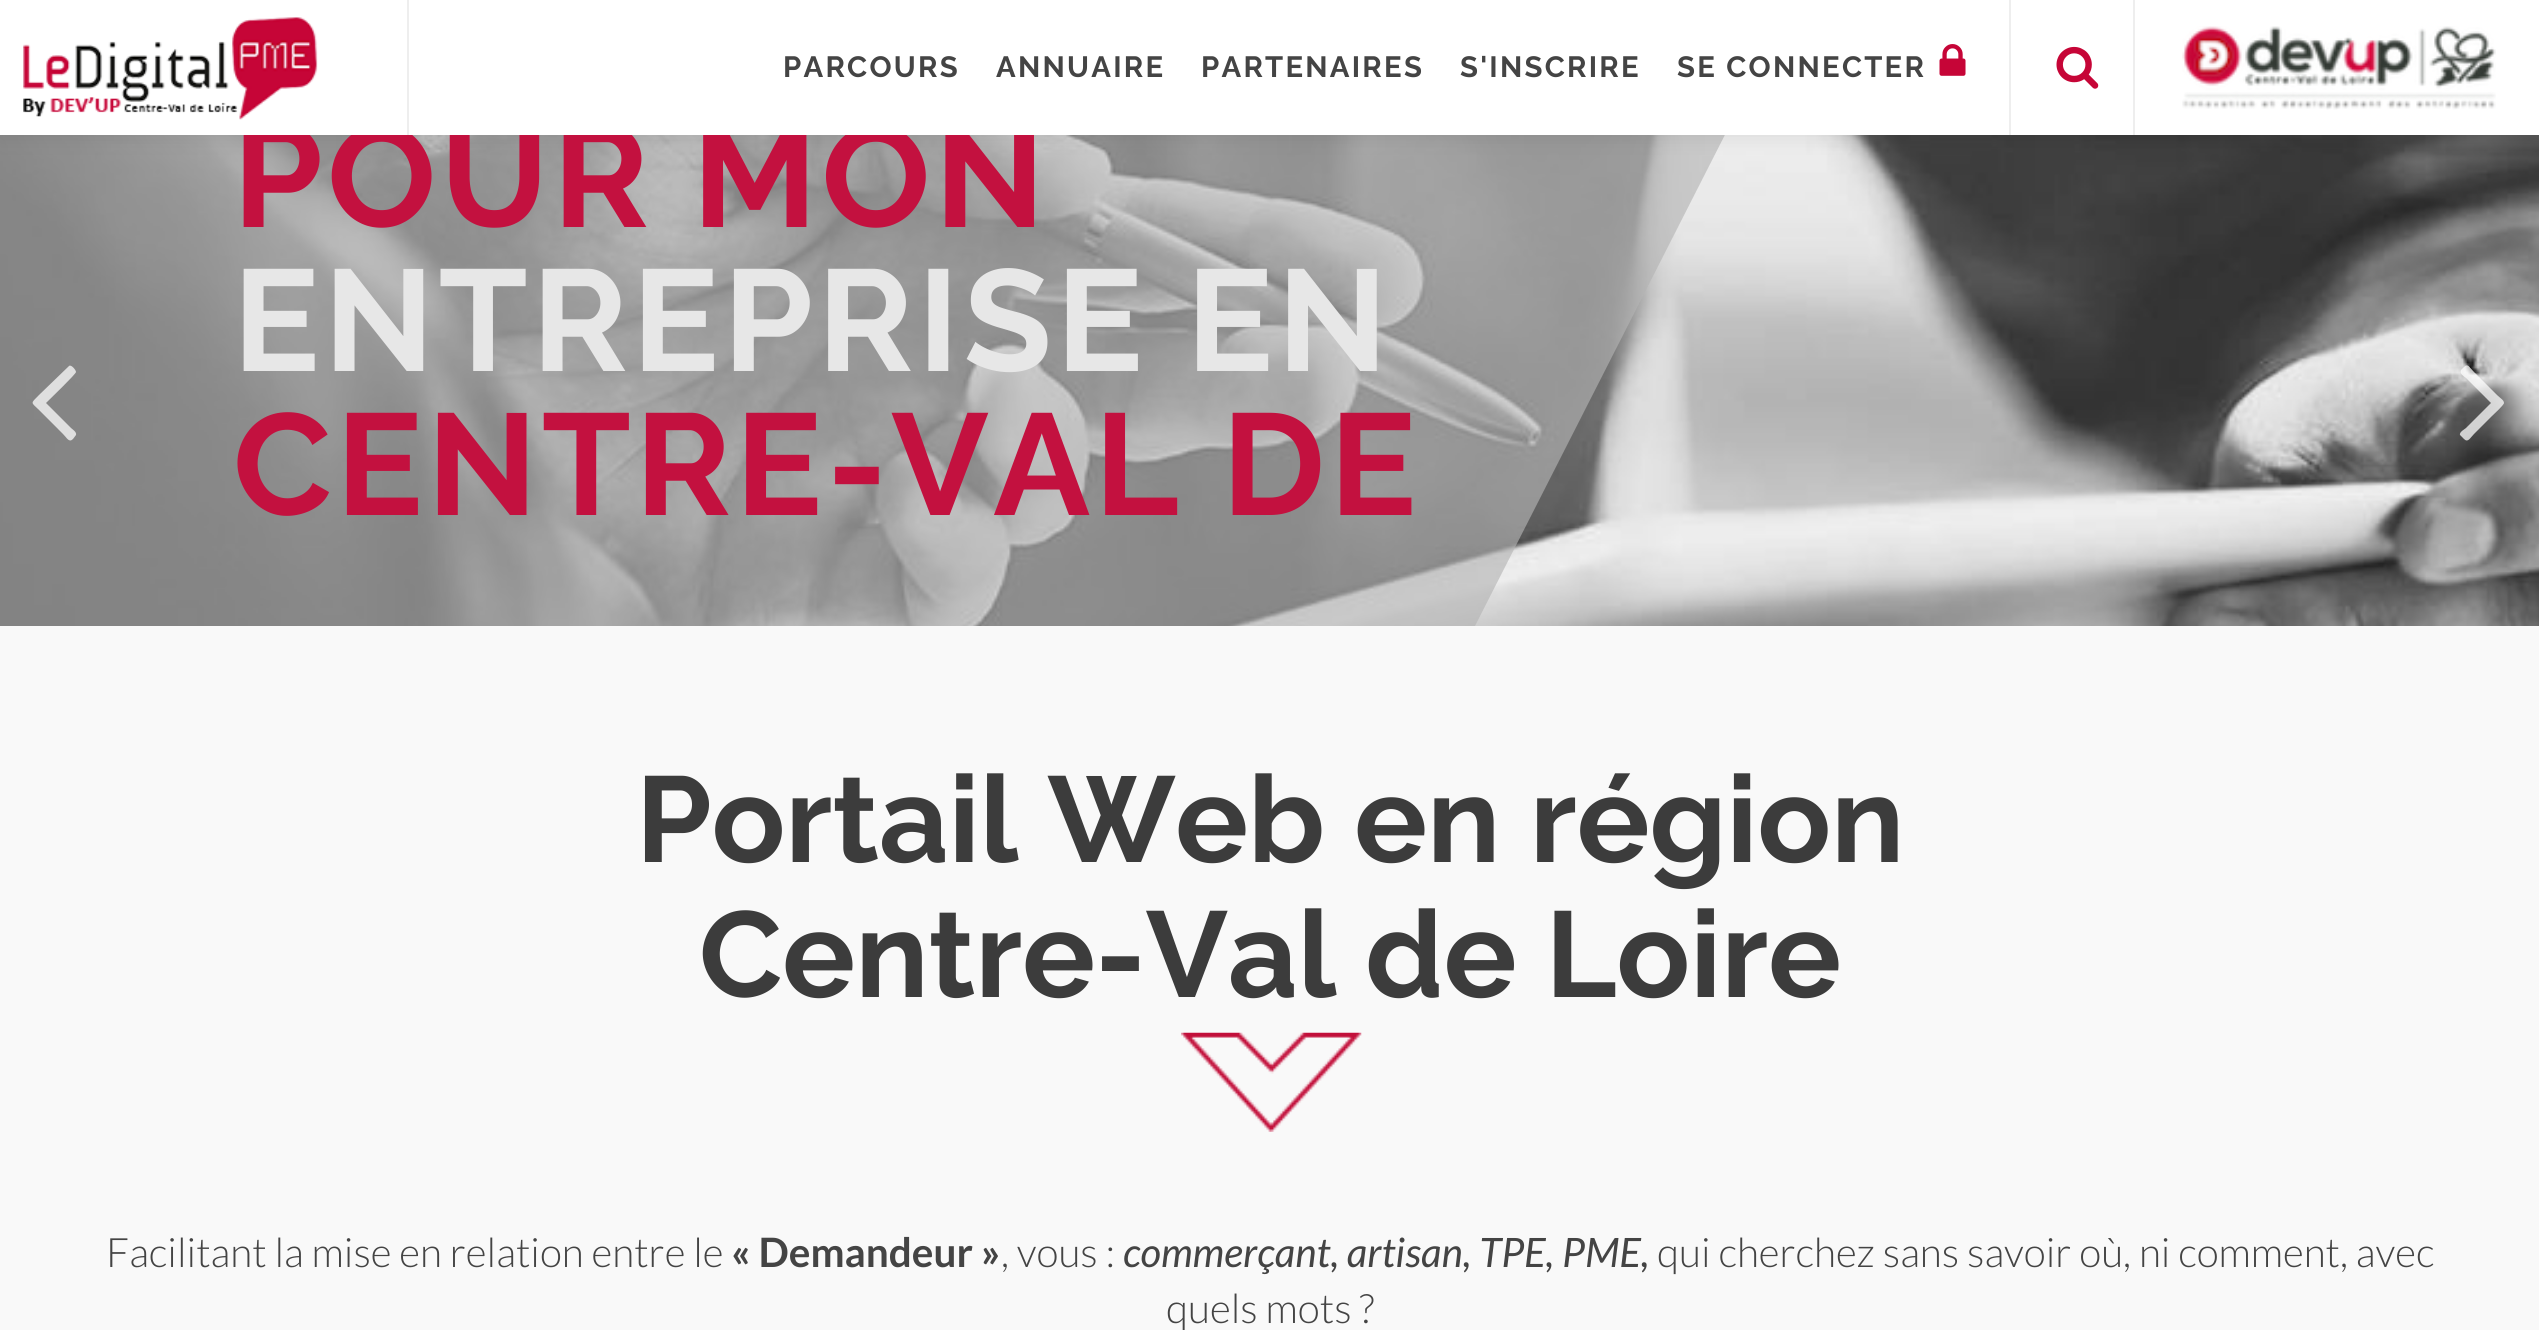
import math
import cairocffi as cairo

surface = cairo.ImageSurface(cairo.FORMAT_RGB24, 2539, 1330)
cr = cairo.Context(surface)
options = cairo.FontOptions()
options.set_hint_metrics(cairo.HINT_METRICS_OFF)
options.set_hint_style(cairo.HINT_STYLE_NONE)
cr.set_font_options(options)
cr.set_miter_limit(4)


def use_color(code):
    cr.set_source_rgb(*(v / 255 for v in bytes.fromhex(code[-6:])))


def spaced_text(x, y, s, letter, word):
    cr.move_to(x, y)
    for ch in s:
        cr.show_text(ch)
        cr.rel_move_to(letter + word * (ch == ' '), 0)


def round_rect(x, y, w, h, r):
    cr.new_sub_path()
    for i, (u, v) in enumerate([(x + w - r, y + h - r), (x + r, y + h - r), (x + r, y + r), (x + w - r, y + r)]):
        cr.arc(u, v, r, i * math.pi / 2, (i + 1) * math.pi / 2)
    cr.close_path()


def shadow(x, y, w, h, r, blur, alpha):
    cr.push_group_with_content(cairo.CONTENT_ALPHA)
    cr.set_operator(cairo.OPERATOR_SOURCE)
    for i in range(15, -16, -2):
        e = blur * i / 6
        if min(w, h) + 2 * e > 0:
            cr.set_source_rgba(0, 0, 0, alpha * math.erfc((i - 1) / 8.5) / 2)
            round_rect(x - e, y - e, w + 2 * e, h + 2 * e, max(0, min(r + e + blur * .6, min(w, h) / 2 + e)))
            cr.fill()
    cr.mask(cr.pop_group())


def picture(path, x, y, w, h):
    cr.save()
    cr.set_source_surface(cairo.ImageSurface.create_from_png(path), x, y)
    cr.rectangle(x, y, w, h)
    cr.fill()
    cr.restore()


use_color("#ffffff")
cr.paint()
picture("img5.png", 0, 135, 2539, 491)
cr.set_source_rgba(0.706, 0.706, 0.706, 0.64)
cr.new_path()
cr.move_to(0, -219)
cr.line_to(1905, -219)
cr.line_to(1275, 1019)
cr.line_to(-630, 1019)
cr.close_path()
cr.fill()
use_color("#000000")
shadow(0, 0, 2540, 135, 0, 11, 0.1)
cr.select_font_face("Raleway", cairo.FONT_SLANT_NORMAL, cairo.FONT_WEIGHT_BOLD)
cr.set_font_size(144)
use_color("#c3113f")
spaced_text(233, 227, "POUR MON", 4.5, 0)
use_color("#ffffff")
cr.rectangle(0, 0, 2539, 135)
cr.fill()
use_color("#eeeeee")
cr.rectangle(407, 0, 2, 135)
cr.fill()
picture("img1.png", 23, 17, 295, 103)
cr.rectangle(2009, 0, 2, 135)
cr.fill()
cr.set_font_size(29.25)
use_color("#444444")
spaced_text(783, 77, "PARCOURS", 2.25, 0)
spaced_text(996, 77, "ANNUAIRE", 2.25, 0)
spaced_text(1201, 77, "PARTENAIRES", 2.25, 0)
spaced_text(1460, 77, "S'INSCRIRE", 2.25, 0)
spaced_text(1677, 77, "SE CONNECTER", 2.25, 0)
picture("img2.png", 1939, 44, 27, 32)
use_color("#eeeeee")
cr.rectangle(2133, 0, 2, 135)
cr.fill()
picture("img3.png", 2056, 46, 43, 43)
picture("img4.png", 2182, 26, 314, 84)
use_color("#dfdfdf")
cr.new_path()
cr.move_to(76, 372)
cr.curve_to(76, 374, 50, 399, 46, 403)
cr.line_to(71, 428)
cr.curve_to(72, 429, 77, 432, 76, 435)
cr.line_to(73, 439)
cr.curve_to(69, 443, 67, 438, 63, 434)
cr.line_to(39, 410)
cr.curve_to(31, 402, 30, 404, 39, 395)
cr.line_to(69, 366)
cr.curve_to(71, 364, 76, 370, 76, 372)
cr.close_path()
cr.fill()
cr.set_font_size(144)
use_color("#e7e7e7")
spaced_text(233, 371, "ENTREPRISE EN", 4.5, 0)
use_color("#c3113f")
spaced_text(233, 515, "CENTRE-VAL DE", 4.5, 0)
cr.set_source_rgba(1, 1, 1, 0.74)
cr.new_path()
cr.move_to(2504, 403)
cr.curve_to(2504, 405, 2493, 415, 2492, 416)
cr.line_to(2474, 434)
cr.curve_to(2470, 438, 2468, 443, 2464, 439)
cr.line_to(2460, 435)
cr.curve_to(2459, 432, 2465, 429, 2466, 428)
cr.line_to(2491, 403)
cr.line_to(2466, 378)
cr.curve_to(2465, 377, 2459, 374, 2461, 370)
cr.line_to(2464, 367)
cr.curve_to(2468, 363, 2469, 367, 2474, 372)
cr.line_to(2497, 395)
cr.curve_to(2500, 398, 2504, 400, 2504, 403)
cr.close_path()
cr.fill()
use_color("#f9f9f9")
cr.rectangle(0, 626, 2539, 704)
cr.fill()
cr.set_font_size(121.5)
use_color("#3c3c3c")
cr.move_to(636, 862)
cr.show_text("Portail Web en région")
cr.move_to(699, 997)
cr.show_text("Centre-Val de Loire")
picture("img6.png", 1181, 1032, 181, 100)
cr.select_font_face("Lato Light")
cr.set_font_size(40.5)
use_color("#444444")
cr.move_to(106, 1267)
cr.show_text("Facilitant la mise en relation entre le")
cr.select_font_face("Lato", cairo.FONT_SLANT_NORMAL, cairo.FONT_WEIGHT_BOLD)
cr.move_to(731, 1267)
cr.show_text("« Demandeur »")
cr.select_font_face("Lato Light")
cr.move_to(1001, 1267)
cr.show_text(", vous :")
cr.select_font_face("Lato", cairo.FONT_SLANT_ITALIC)
cr.move_to(1123, 1267)
cr.show_text("commerçant, artisan, TPE, PME,")
cr.select_font_face("Lato Light")
cr.move_to(1657, 1267)
cr.show_text("qui cherchez sans savoir où, ni comment, avec")
cr.move_to(1166, 1323)
cr.show_text("quels mots ?")
surface.write_to_png("result.png")
